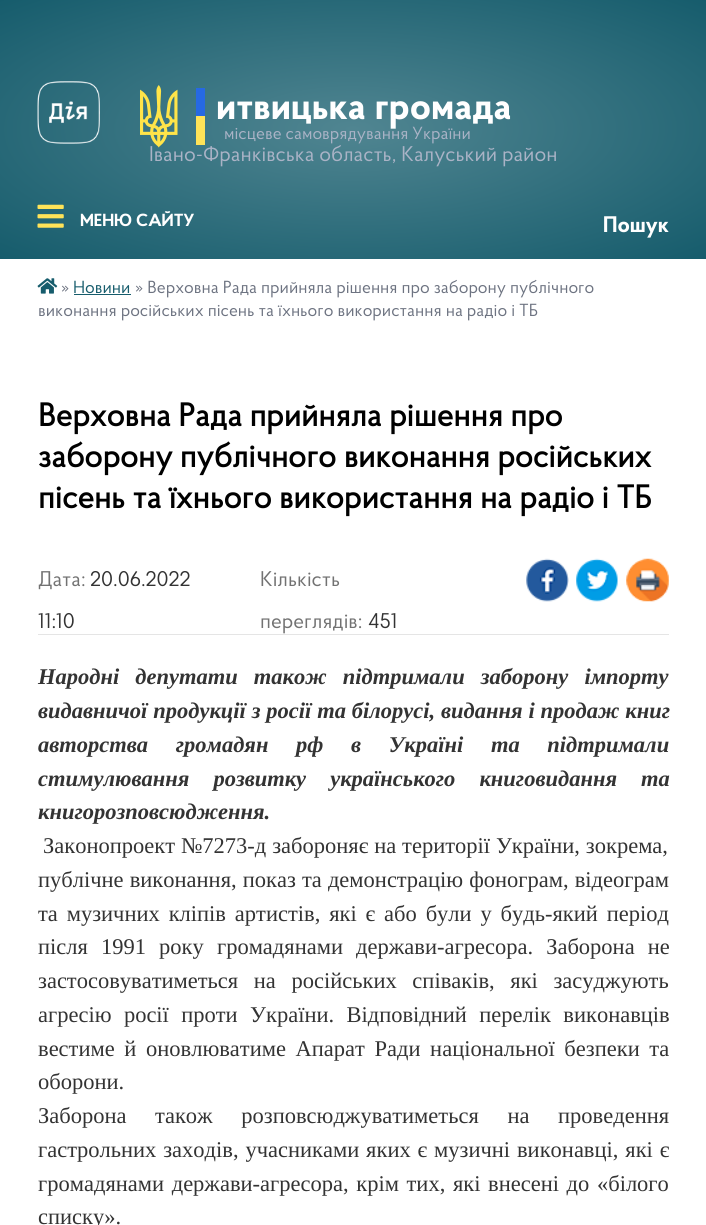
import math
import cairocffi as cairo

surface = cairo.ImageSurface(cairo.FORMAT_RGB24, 706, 1225)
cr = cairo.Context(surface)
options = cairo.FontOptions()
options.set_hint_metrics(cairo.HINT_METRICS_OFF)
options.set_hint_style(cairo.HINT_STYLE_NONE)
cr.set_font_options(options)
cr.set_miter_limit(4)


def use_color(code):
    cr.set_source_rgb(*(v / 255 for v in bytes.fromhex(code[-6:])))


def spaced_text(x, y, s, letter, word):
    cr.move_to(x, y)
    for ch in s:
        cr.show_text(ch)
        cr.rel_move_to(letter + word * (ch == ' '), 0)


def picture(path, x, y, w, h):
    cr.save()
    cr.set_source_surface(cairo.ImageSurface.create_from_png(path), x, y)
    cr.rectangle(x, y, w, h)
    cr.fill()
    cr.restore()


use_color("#ffffff")
cr.paint()
gradient = cairo.RadialGradient(0, 0, 0, 0, 0, 1)
gradient.set_matrix(cairo.Matrix(1 / 499, 0, 0, 1 / 183, -1 * 353 / 499, -1 * 129 / 183))
gradient.add_color_stop_rgba(0, 0.314, 0.522, 0.569, 1)
gradient.add_color_stop_rgba(1, 0.086, 0.361, 0.424, 1)
cr.set_source(gradient)
cr.rectangle(0, 0, 706, 259)
cr.fill()
cr.select_font_face("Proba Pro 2", cairo.FONT_SLANT_NORMAL, cairo.FONT_WEIGHT_BOLD)
cr.set_font_size(38.75)
use_color("#ffffff")
cr.move_to(216, 119)
cr.show_text("итвицька громада")
cr.select_font_face("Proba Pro")
cr.set_font_size(21.25)
use_color("#aab3c6")
cr.move_to(149, 161)
cr.show_text("Івано-Франківська область, Калуський район")
picture("img1.png", 37, 81, 63, 63)
picture("img2.png", 140, 85, 38, 63)
use_color("#2669e3")
cr.rectangle(196, 88, 9, 28)
cr.fill()
use_color("#ffe358")
cr.rectangle(196, 116, 9, 29)
cr.fill()
cr.set_font_size(17.5)
use_color("#aab3c6")
cr.move_to(224, 139)
cr.show_text("місцеве самоврядування України")
picture("img3.png", 37, 204, 27, 24)
cr.select_font_face("Proba Pro 2", cairo.FONT_SLANT_NORMAL, cairo.FONT_WEIGHT_BOLD)
use_color("#ffffff")
cr.move_to(80, 226)
cr.show_text("МЕНЮ САЙТУ")
cr.set_font_size(22.5)
cr.move_to(603, 232)
cr.show_text("Пошук")
picture("img4.png", 37, 278, 21, 16)
cr.select_font_face("Proba Pro")
cr.set_font_size(17.5)
use_color("#6d7381")
cr.move_to(61, 293)
cr.show_text("»")
use_color("#165c6c")
cr.move_to(73, 293)
cr.show_text("Новини")
cr.rectangle(74, 294, 57, 1)
cr.fill()
use_color("#6d7381")
cr.move_to(135, 293)
cr.show_text("» Верховна Рада прийняла рішення про заборону публічного")
cr.move_to(38, 316)
cr.show_text("виконання російських пісень та їхнього використання на радіо і ТБ")
cr.select_font_face("Proba Pro", cairo.FONT_SLANT_NORMAL, cairo.FONT_WEIGHT_BOLD)
cr.set_font_size(32.5)
use_color("#000000")
cr.move_to(38, 426)
cr.show_text("Верховна Рада прийняла рішення про")
cr.move_to(38, 467)
cr.show_text("заборону публічного виконання російських")
cr.move_to(38, 508)
cr.show_text("пісень та їхнього використання на радіо і ТБ")
cr.select_font_face("Proba Pro")
cr.set_font_size(21.25)
use_color("#727272")
cr.move_to(38, 586)
cr.show_text("Дата:")
use_color("#333333")
cr.move_to(90, 586)
cr.show_text("20.06.2022")
cr.move_to(38, 628)
cr.show_text("11:10")
use_color("#727272")
cr.move_to(260, 586)
cr.show_text("Кількість")
cr.move_to(260, 628)
cr.show_text("переглядів:")
use_color("#333333")
cr.move_to(368, 628)
cr.show_text("451")
picture("img5.png", 526, 558, 43, 44)
picture("img6.png", 576, 558, 42, 44)
picture("img7.png", 626, 558, 43, 44)
use_color("#e5e5e5")
cr.rectangle(38, 634, 631, 1)
cr.fill()
cr.select_font_face("Liberation Serif", cairo.FONT_SLANT_ITALIC, cairo.FONT_WEIGHT_BOLD)
cr.set_font_size(22.5)
use_color("#333333")
spaced_text(38, 684, "Народні депутати також підтримали заборону імпорту", 0, 10.5)
spaced_text(38, 718, "видавничої продукції з росії та білорусі, видання і продаж книг", 0, 0.25)
spaced_text(38, 752, "авторства громадян рф в Україні та підтримали", 0, 22)
spaced_text(38, 786, "стимулювання розвитку українського книговидання та", 0, 18.5)
cr.move_to(38, 819)
cr.show_text("книгорозповсюдження.")
cr.select_font_face("Liberation Serif")
spaced_text(43, 853, "Законопроект №7273-д забороняє на території України, зокрема,", 0, 0.25)
spaced_text(38, 887, "публічне виконання, показ та демонстрацію фонограм, відеограм", 0, 0.5)
spaced_text(38, 921, "та музичних кліпів артистів, які є або були у будь-який період", 0, 3.25)
spaced_text(38, 954, "після 1991 року громадянами держави-агресора. Заборона не", 0, 7.5)
spaced_text(38, 988, "застосовуватиметься на російських співаків, які засуджують", 0, 10)
spaced_text(38, 1022, "агресію росії проти України. Відповідний перелік виконавців", 0, 6.75)
spaced_text(38, 1056, "вестиме й оновлюватиме Апарат Ради національної безпеки та", 0, 4)
cr.move_to(38, 1089)
cr.show_text("оборони.")
spaced_text(38, 1123, "Заборона також розповсюджуватиметься на проведення", 0, 23)
spaced_text(38, 1157, "гастрольних заходів, учасниками яких є музичні виконавці, які є", 0, 1.25)
spaced_text(38, 1191, "громадянами держави-агресора, крім тих, які внесені до «білого", 0, 2)
cr.move_to(38, 1224)
cr.show_text("списку».")
surface.write_to_png("result.png")
